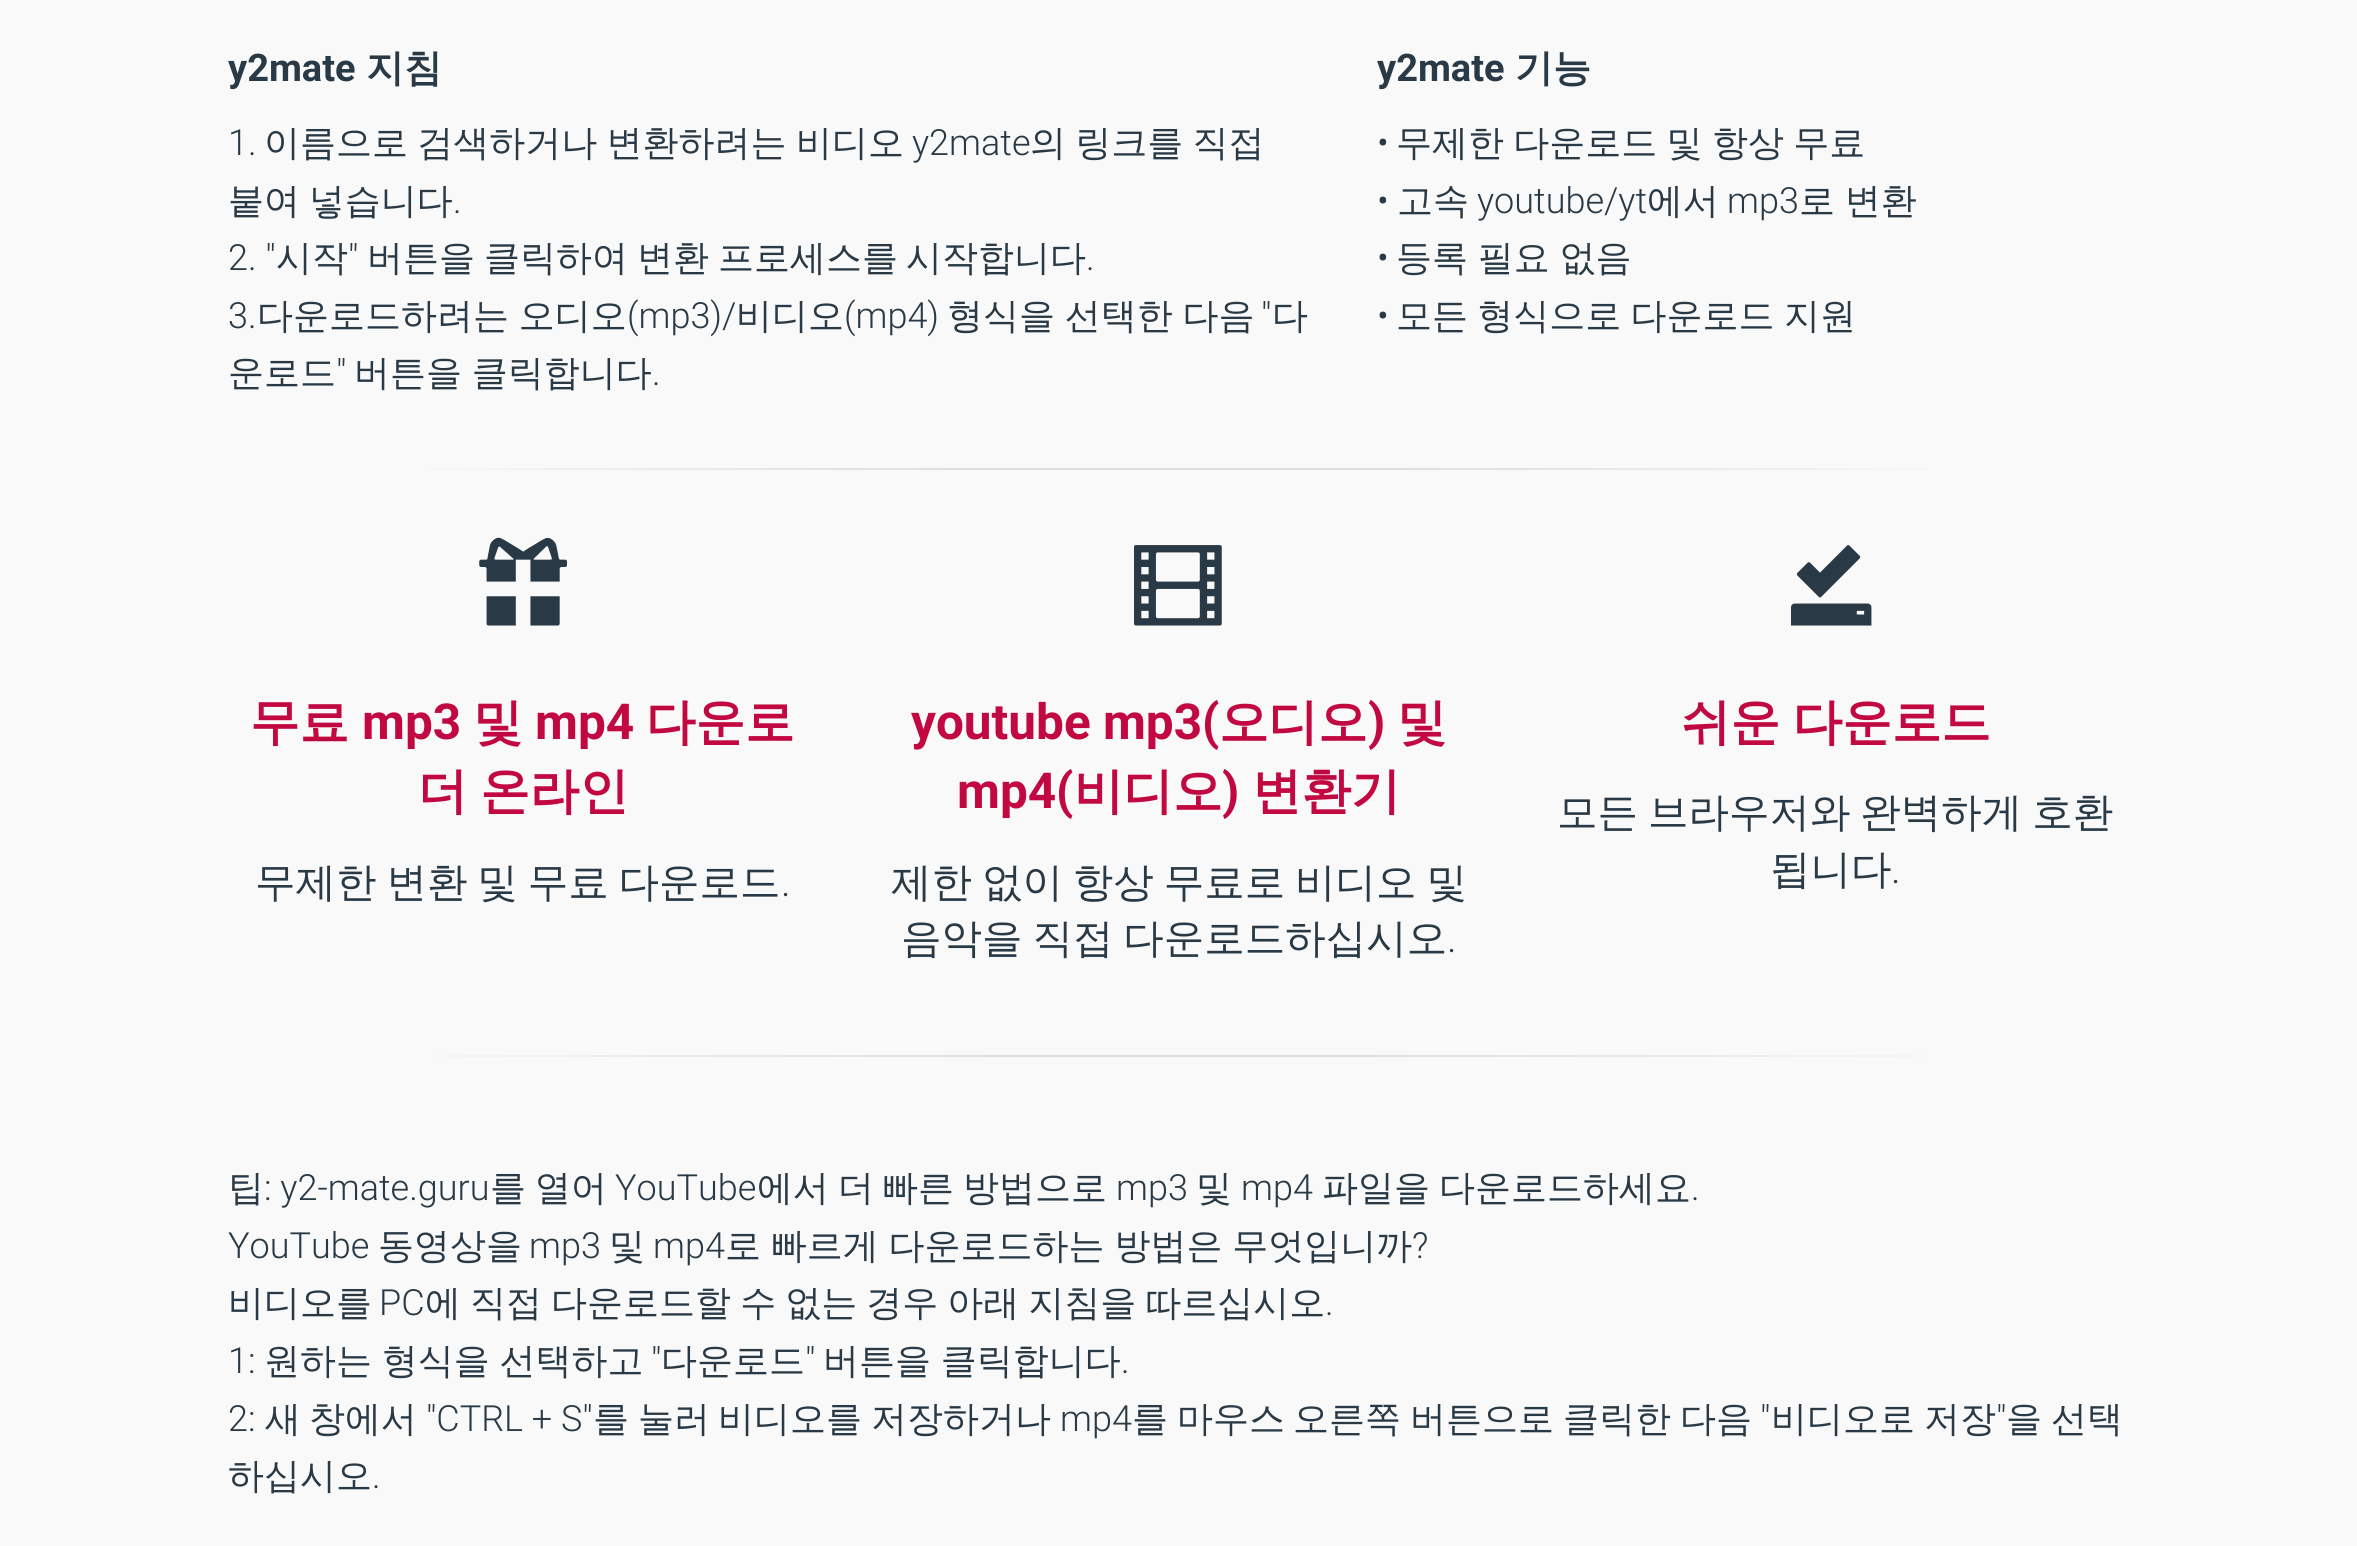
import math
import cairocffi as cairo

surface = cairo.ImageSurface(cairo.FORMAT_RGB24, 2357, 1546)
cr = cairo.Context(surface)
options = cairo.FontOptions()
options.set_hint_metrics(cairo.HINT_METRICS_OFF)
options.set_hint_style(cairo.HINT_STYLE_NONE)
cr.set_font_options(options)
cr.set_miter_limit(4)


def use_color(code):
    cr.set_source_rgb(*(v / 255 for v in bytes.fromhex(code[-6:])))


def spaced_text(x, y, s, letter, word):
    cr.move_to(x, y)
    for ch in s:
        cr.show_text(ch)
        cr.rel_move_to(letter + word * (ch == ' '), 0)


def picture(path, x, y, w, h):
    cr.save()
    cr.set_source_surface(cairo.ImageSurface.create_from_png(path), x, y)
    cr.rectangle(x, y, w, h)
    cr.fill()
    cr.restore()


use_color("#f9f9f9")
cr.paint()
cr.select_font_face("Roboto", cairo.FONT_SLANT_NORMAL, cairo.FONT_WEIGHT_BOLD)
cr.set_font_size(38)
use_color("#293a46")
cr.move_to(228, 81)
cr.show_text("y2mate")
cr.select_font_face("WenQuanYi Zen Hei", cairo.FONT_SLANT_NORMAL, cairo.FONT_WEIGHT_BOLD)
cr.move_to(366, 81)
cr.show_text("지침")
cr.select_font_face("Roboto Light")
cr.set_font_size(36)
cr.move_to(228, 155)
cr.show_text("1.")
cr.select_font_face("WenQuanYi Zen Hei Medium")
spaced_text(264, 155, "이름으로 검색하거나 변환하려는 비디오", 0, -1.5)
cr.select_font_face("Roboto Light")
cr.move_to(912, 155)
cr.show_text("y2mate")
cr.select_font_face("WenQuanYi Zen Hei Medium")
spaced_text(1030, 155, "의 링크를 직접", 0, -1.5)
spaced_text(228, 213, "붙여 넣습니다", 0, -2)
cr.select_font_face("Roboto Light")
cr.move_to(453, 213)
cr.show_text(".")
cr.move_to(228, 270)
cr.show_text("2. \"")
cr.select_font_face("WenQuanYi Zen Hei Medium")
cr.move_to(276, 270)
cr.show_text("시작")
cr.select_font_face("Roboto Light")
cr.move_to(348, 270)
cr.show_text("\"")
cr.select_font_face("WenQuanYi Zen Hei Medium")
cr.move_to(367, 270)
cr.show_text("버튼을")
cr.move_to(484, 270)
cr.show_text("클릭하여")
cr.move_to(637, 270)
cr.show_text("변환")
cr.move_to(718, 270)
cr.show_text("프로세스를")
cr.move_to(906, 270)
cr.show_text("시작합니다")
cr.select_font_face("Roboto Light")
cr.move_to(1086, 270)
cr.show_text(".")
cr.move_to(228, 328)
cr.show_text("3.")
cr.select_font_face("WenQuanYi Zen Hei Medium")
spaced_text(257, 328, "다운로드하려는 오디오", 0, -1)
cr.select_font_face("Roboto Light")
cr.move_to(627, 328)
cr.show_text("(mp3)/")
cr.select_font_face("WenQuanYi Zen Hei Medium")
cr.move_to(736, 328)
cr.show_text("비디오")
cr.select_font_face("Roboto Light")
cr.move_to(844, 328)
cr.show_text("(mp4)")
cr.select_font_face("WenQuanYi Zen Hei Medium")
spaced_text(947, 328, "형식을 선택한 다음", 0, -1)
cr.select_font_face("Roboto Light")
cr.move_to(1261, 328)
cr.show_text("\"")
cr.select_font_face("WenQuanYi Zen Hei Medium")
cr.move_to(1272, 328)
cr.show_text("다")
cr.move_to(228, 385)
cr.show_text("운로드")
cr.select_font_face("Roboto Light")
cr.move_to(336, 385)
cr.show_text("\"")
cr.select_font_face("WenQuanYi Zen Hei Medium")
spaced_text(354, 385, "버튼을 클릭합니다", 0, -1)
cr.select_font_face("Roboto Light")
cr.move_to(652, 385)
cr.show_text(".")
cr.select_font_face("Roboto", cairo.FONT_SLANT_NORMAL, cairo.FONT_WEIGHT_BOLD)
cr.set_font_size(38)
cr.move_to(1377, 81)
cr.show_text("y2mate")
cr.select_font_face("WenQuanYi Zen Hei", cairo.FONT_SLANT_NORMAL, cairo.FONT_WEIGHT_BOLD)
cr.move_to(1515, 81)
cr.show_text("기능")
cr.select_font_face("Roboto Light")
cr.set_font_size(36)
cr.move_to(1377, 155)
cr.show_text("•")
cr.select_font_face("WenQuanYi Zen Hei Medium")
spaced_text(1396, 155, "무제한 다운로드 및 항상 무료", 0, -1.5)
cr.select_font_face("Roboto Light")
cr.move_to(1377, 213)
cr.show_text("•")
cr.select_font_face("WenQuanYi Zen Hei Medium")
cr.move_to(1397, 213)
cr.show_text("고속")
cr.select_font_face("Roboto Light")
cr.move_to(1477, 213)
cr.show_text("youtube/yt")
cr.select_font_face("WenQuanYi Zen Hei Medium")
cr.move_to(1647, 213)
cr.show_text("에서")
cr.select_font_face("Roboto Light")
cr.move_to(1727, 213)
cr.show_text("mp3")
cr.select_font_face("WenQuanYi Zen Hei Medium")
spaced_text(1799, 213, "로 변환", 0, -1)
cr.select_font_face("Roboto Light")
cr.move_to(1377, 270)
cr.show_text("•")
cr.select_font_face("WenQuanYi Zen Hei Medium")
spaced_text(1396, 270, "등록 필요 없음", 0, -1)
cr.select_font_face("Roboto Light")
cr.move_to(1377, 328)
cr.show_text("•")
cr.select_font_face("WenQuanYi Zen Hei Medium")
spaced_text(1396, 328, "모든 형식으로 다운로드 지원", 0, -1.5)
gradient = cairo.RadialGradient(0, 0, 0, 0, 0, 1)
gradient.set_matrix(cairo.Matrix(1 / 1171, 0, 0, 1 / 1.6, -1 * 1179 / 1171, -1 * 469 / 1.6))
gradient.add_color_stop_rgba(0, 0.78, 0.78, 0.78, 1)
gradient.add_color_stop_rgba(0.75, 0.976, 0.976, 0.976, 1)
cr.set_source(gradient)
cr.rectangle(430, 468, 1498, 2)
cr.fill()
picture("img1.png", 479, 537, 88, 89)
cr.select_font_face("WenQuanYi Zen Hei", cairo.FONT_SLANT_NORMAL, cairo.FONT_WEIGHT_BOLD)
cr.set_font_size(49.5)
use_color("#c10841")
cr.move_to(250, 739)
cr.show_text("무료")
cr.select_font_face("Roboto", cairo.FONT_SLANT_NORMAL, cairo.FONT_WEIGHT_BOLD)
cr.move_to(362, 739)
cr.show_text("mp3")
cr.select_font_face("WenQuanYi Zen Hei", cairo.FONT_SLANT_NORMAL, cairo.FONT_WEIGHT_BOLD)
cr.move_to(473, 739)
cr.show_text("및")
cr.select_font_face("Roboto", cairo.FONT_SLANT_NORMAL, cairo.FONT_WEIGHT_BOLD)
cr.move_to(535, 739)
cr.show_text("mp4")
cr.select_font_face("WenQuanYi Zen Hei", cairo.FONT_SLANT_NORMAL, cairo.FONT_WEIGHT_BOLD)
cr.move_to(646, 739)
cr.show_text("다운로")
spaced_text(418, 808, "더 온라인", 0, -2)
cr.select_font_face("WenQuanYi Zen Hei Medium")
cr.set_font_size(40.5)
use_color("#293a46")
spaced_text(255, 896, "무제한 변환 및 무료 다운로드", 0, -2.25)
cr.select_font_face("Roboto Light")
cr.move_to(781, 896)
cr.show_text(".")
picture("img2.png", 1134, 545, 88, 81)
cr.select_font_face("Roboto", cairo.FONT_SLANT_NORMAL, cairo.FONT_WEIGHT_BOLD)
cr.set_font_size(49.5)
use_color("#c10841")
cr.move_to(911, 739)
cr.show_text("youtube mp3(")
cr.select_font_face("WenQuanYi Zen Hei", cairo.FONT_SLANT_NORMAL, cairo.FONT_WEIGHT_BOLD)
cr.move_to(1219, 739)
cr.show_text("오디오")
cr.select_font_face("Roboto", cairo.FONT_SLANT_NORMAL, cairo.FONT_WEIGHT_BOLD)
cr.move_to(1368, 739)
cr.show_text(")")
cr.select_font_face("WenQuanYi Zen Hei", cairo.FONT_SLANT_NORMAL, cairo.FONT_WEIGHT_BOLD)
cr.move_to(1397, 739)
cr.show_text("및")
cr.select_font_face("Roboto", cairo.FONT_SLANT_NORMAL, cairo.FONT_WEIGHT_BOLD)
cr.move_to(957, 808)
cr.show_text("mp4(")
cr.select_font_face("WenQuanYi Zen Hei", cairo.FONT_SLANT_NORMAL, cairo.FONT_WEIGHT_BOLD)
cr.move_to(1074, 808)
cr.show_text("비디오")
cr.select_font_face("Roboto", cairo.FONT_SLANT_NORMAL, cairo.FONT_WEIGHT_BOLD)
cr.move_to(1222, 808)
cr.show_text(")")
cr.select_font_face("WenQuanYi Zen Hei", cairo.FONT_SLANT_NORMAL, cairo.FONT_WEIGHT_BOLD)
cr.move_to(1252, 808)
cr.show_text("변환기")
cr.select_font_face("WenQuanYi Zen Hei Medium")
cr.set_font_size(40.5)
use_color("#293a46")
spaced_text(891, 896, "제한 없이 항상 무료로 비디오 및", 0, -2.25)
spaced_text(901, 952, "음악을 직접 다운로드하십시오", 0, -2.25)
cr.select_font_face("Roboto Light")
cr.move_to(1447, 952)
cr.show_text(".")
picture("img3.png", 1791, 545, 81, 81)
cr.select_font_face("WenQuanYi Zen Hei", cairo.FONT_SLANT_NORMAL, cairo.FONT_WEIGHT_BOLD)
cr.set_font_size(49.5)
use_color("#c10841")
spaced_text(1681, 739, "쉬운 다운로드", 0, -2)
cr.select_font_face("WenQuanYi Zen Hei Medium")
cr.set_font_size(40.5)
use_color("#293a46")
spaced_text(1557, 826, "모든 브라우저와 완벽하게 호환", 0, -2.25)
cr.move_to(1770, 883)
cr.show_text("됩니다")
cr.select_font_face("Roboto Light")
cr.move_to(1891, 883)
cr.show_text(".")
gradient = cairo.RadialGradient(0, 0, 0, 0, 0, 1)
gradient.set_matrix(cairo.Matrix(1 / 1171, 0, 0, 1 / 1.6, -1 * 1179 / 1171, -1 * 1056 / 1.6))
gradient.add_color_stop_rgba(0, 0.78, 0.78, 0.78, 1)
gradient.add_color_stop_rgba(0.75, 0.976, 0.976, 0.976, 1)
cr.set_source(gradient)
cr.rectangle(430, 1055, 1498, 2)
cr.fill()
cr.select_font_face("WenQuanYi Zen Hei Medium")
cr.set_font_size(36)
use_color("#293a46")
cr.move_to(228, 1200)
cr.show_text("팁")
cr.select_font_face("Roboto Light")
cr.move_to(264, 1200)
cr.show_text(": y2-mate.guru")
cr.select_font_face("WenQuanYi Zen Hei Medium")
cr.move_to(490, 1200)
cr.show_text("를")
cr.move_to(535, 1200)
cr.show_text("열어")
cr.select_font_face("Roboto Light")
cr.move_to(615, 1200)
cr.show_text("YouTube")
cr.select_font_face("WenQuanYi Zen Hei Medium")
cr.move_to(757, 1200)
cr.show_text("에서")
cr.move_to(838, 1200)
cr.show_text("더")
cr.move_to(882, 1200)
cr.show_text("빠른")
cr.move_to(963, 1200)
cr.show_text("방법으로")
cr.select_font_face("Roboto Light")
cr.move_to(1116, 1200)
cr.show_text("mp3")
cr.select_font_face("WenQuanYi Zen Hei Medium")
cr.move_to(1196, 1200)
cr.show_text("및")
cr.select_font_face("Roboto Light")
cr.move_to(1241, 1200)
cr.show_text("mp4")
cr.select_font_face("WenQuanYi Zen Hei Medium")
cr.move_to(1322, 1200)
cr.show_text("파일을")
cr.move_to(1439, 1200)
cr.show_text("다운로드하세요")
cr.select_font_face("Roboto Light")
cr.move_to(1691, 1200)
cr.show_text(".")
cr.move_to(228, 1258)
cr.show_text("YouTube")
cr.select_font_face("WenQuanYi Zen Hei Medium")
cr.move_to(378, 1258)
cr.show_text("동영상을")
cr.select_font_face("Roboto Light")
cr.move_to(529, 1258)
cr.show_text("mp3")
cr.select_font_face("WenQuanYi Zen Hei Medium")
cr.move_to(609, 1258)
cr.show_text("및")
cr.select_font_face("Roboto Light")
cr.move_to(653, 1258)
cr.show_text("mp4")
cr.select_font_face("WenQuanYi Zen Hei Medium")
spaced_text(725, 1258, "로 빠르게 다운로드하는 방법은 무엇입니까", 0, -1)
cr.select_font_face("Roboto Light")
cr.move_to(1412, 1258)
cr.show_text("?")
cr.select_font_face("WenQuanYi Zen Hei Medium")
cr.move_to(228, 1315)
cr.show_text("비디오를")
cr.select_font_face("Roboto Light")
cr.move_to(379, 1315)
cr.show_text("PC")
cr.select_font_face("WenQuanYi Zen Hei Medium")
spaced_text(425, 1315, "에 직접 다운로드할 수 없는 경우 아래 지침을 따르십시오", 0, -1.75)
cr.select_font_face("Roboto Light")
cr.move_to(1325, 1315)
cr.show_text(".")
cr.move_to(228, 1373)
cr.show_text("1:")
cr.select_font_face("WenQuanYi Zen Hei Medium")
spaced_text(264, 1373, "원하는 형식을 선택하고", 0, -1)
cr.select_font_face("Roboto Light")
cr.move_to(651, 1373)
cr.show_text("\"")
cr.select_font_face("WenQuanYi Zen Hei Medium")
cr.move_to(661, 1373)
cr.show_text("다운로드")
cr.select_font_face("Roboto Light")
cr.move_to(805, 1373)
cr.show_text("\"")
cr.select_font_face("WenQuanYi Zen Hei Medium")
spaced_text(823, 1373, "버튼을 클릭합니다", 0, -1)
cr.select_font_face("Roboto Light")
cr.move_to(1121, 1373)
cr.show_text(".")
cr.move_to(228, 1431)
cr.show_text("2:")
cr.select_font_face("WenQuanYi Zen Hei Medium")
cr.move_to(265, 1431)
cr.show_text("새")
cr.move_to(309, 1431)
cr.show_text("창에서")
cr.select_font_face("Roboto Light")
cr.move_to(426, 1431)
cr.show_text("\"CTRL + S\"")
cr.select_font_face("WenQuanYi Zen Hei Medium")
cr.move_to(593, 1431)
cr.show_text("를")
cr.move_to(638, 1431)
cr.show_text("눌러")
cr.move_to(718, 1431)
cr.show_text("비디오를")
cr.move_to(871, 1431)
cr.show_text("저장하거나")
cr.select_font_face("Roboto Light")
cr.move_to(1060, 1431)
cr.show_text("mp4")
cr.select_font_face("WenQuanYi Zen Hei Medium")
cr.move_to(1132, 1431)
cr.show_text("를")
cr.move_to(1177, 1431)
cr.show_text("마우스")
cr.move_to(1293, 1431)
cr.show_text("오른쪽")
cr.move_to(1410, 1431)
cr.show_text("버튼으로")
cr.move_to(1563, 1431)
cr.show_text("클릭한")
cr.move_to(1680, 1431)
cr.show_text("다음")
cr.select_font_face("Roboto Light")
cr.move_to(1760, 1431)
cr.show_text("\"")
cr.select_font_face("WenQuanYi Zen Hei Medium")
cr.move_to(1771, 1431)
cr.show_text("비디오로")
cr.move_to(1924, 1431)
cr.show_text("저장")
cr.select_font_face("Roboto Light")
cr.move_to(1996, 1431)
cr.show_text("\"")
cr.select_font_face("WenQuanYi Zen Hei Medium")
cr.move_to(2006, 1431)
cr.show_text("을")
cr.move_to(2051, 1431)
cr.show_text("선택")
cr.move_to(228, 1488)
cr.show_text("하십시오")
cr.select_font_face("Roboto Light")
cr.move_to(372, 1488)
cr.show_text(".")
surface.write_to_png("result.png")
